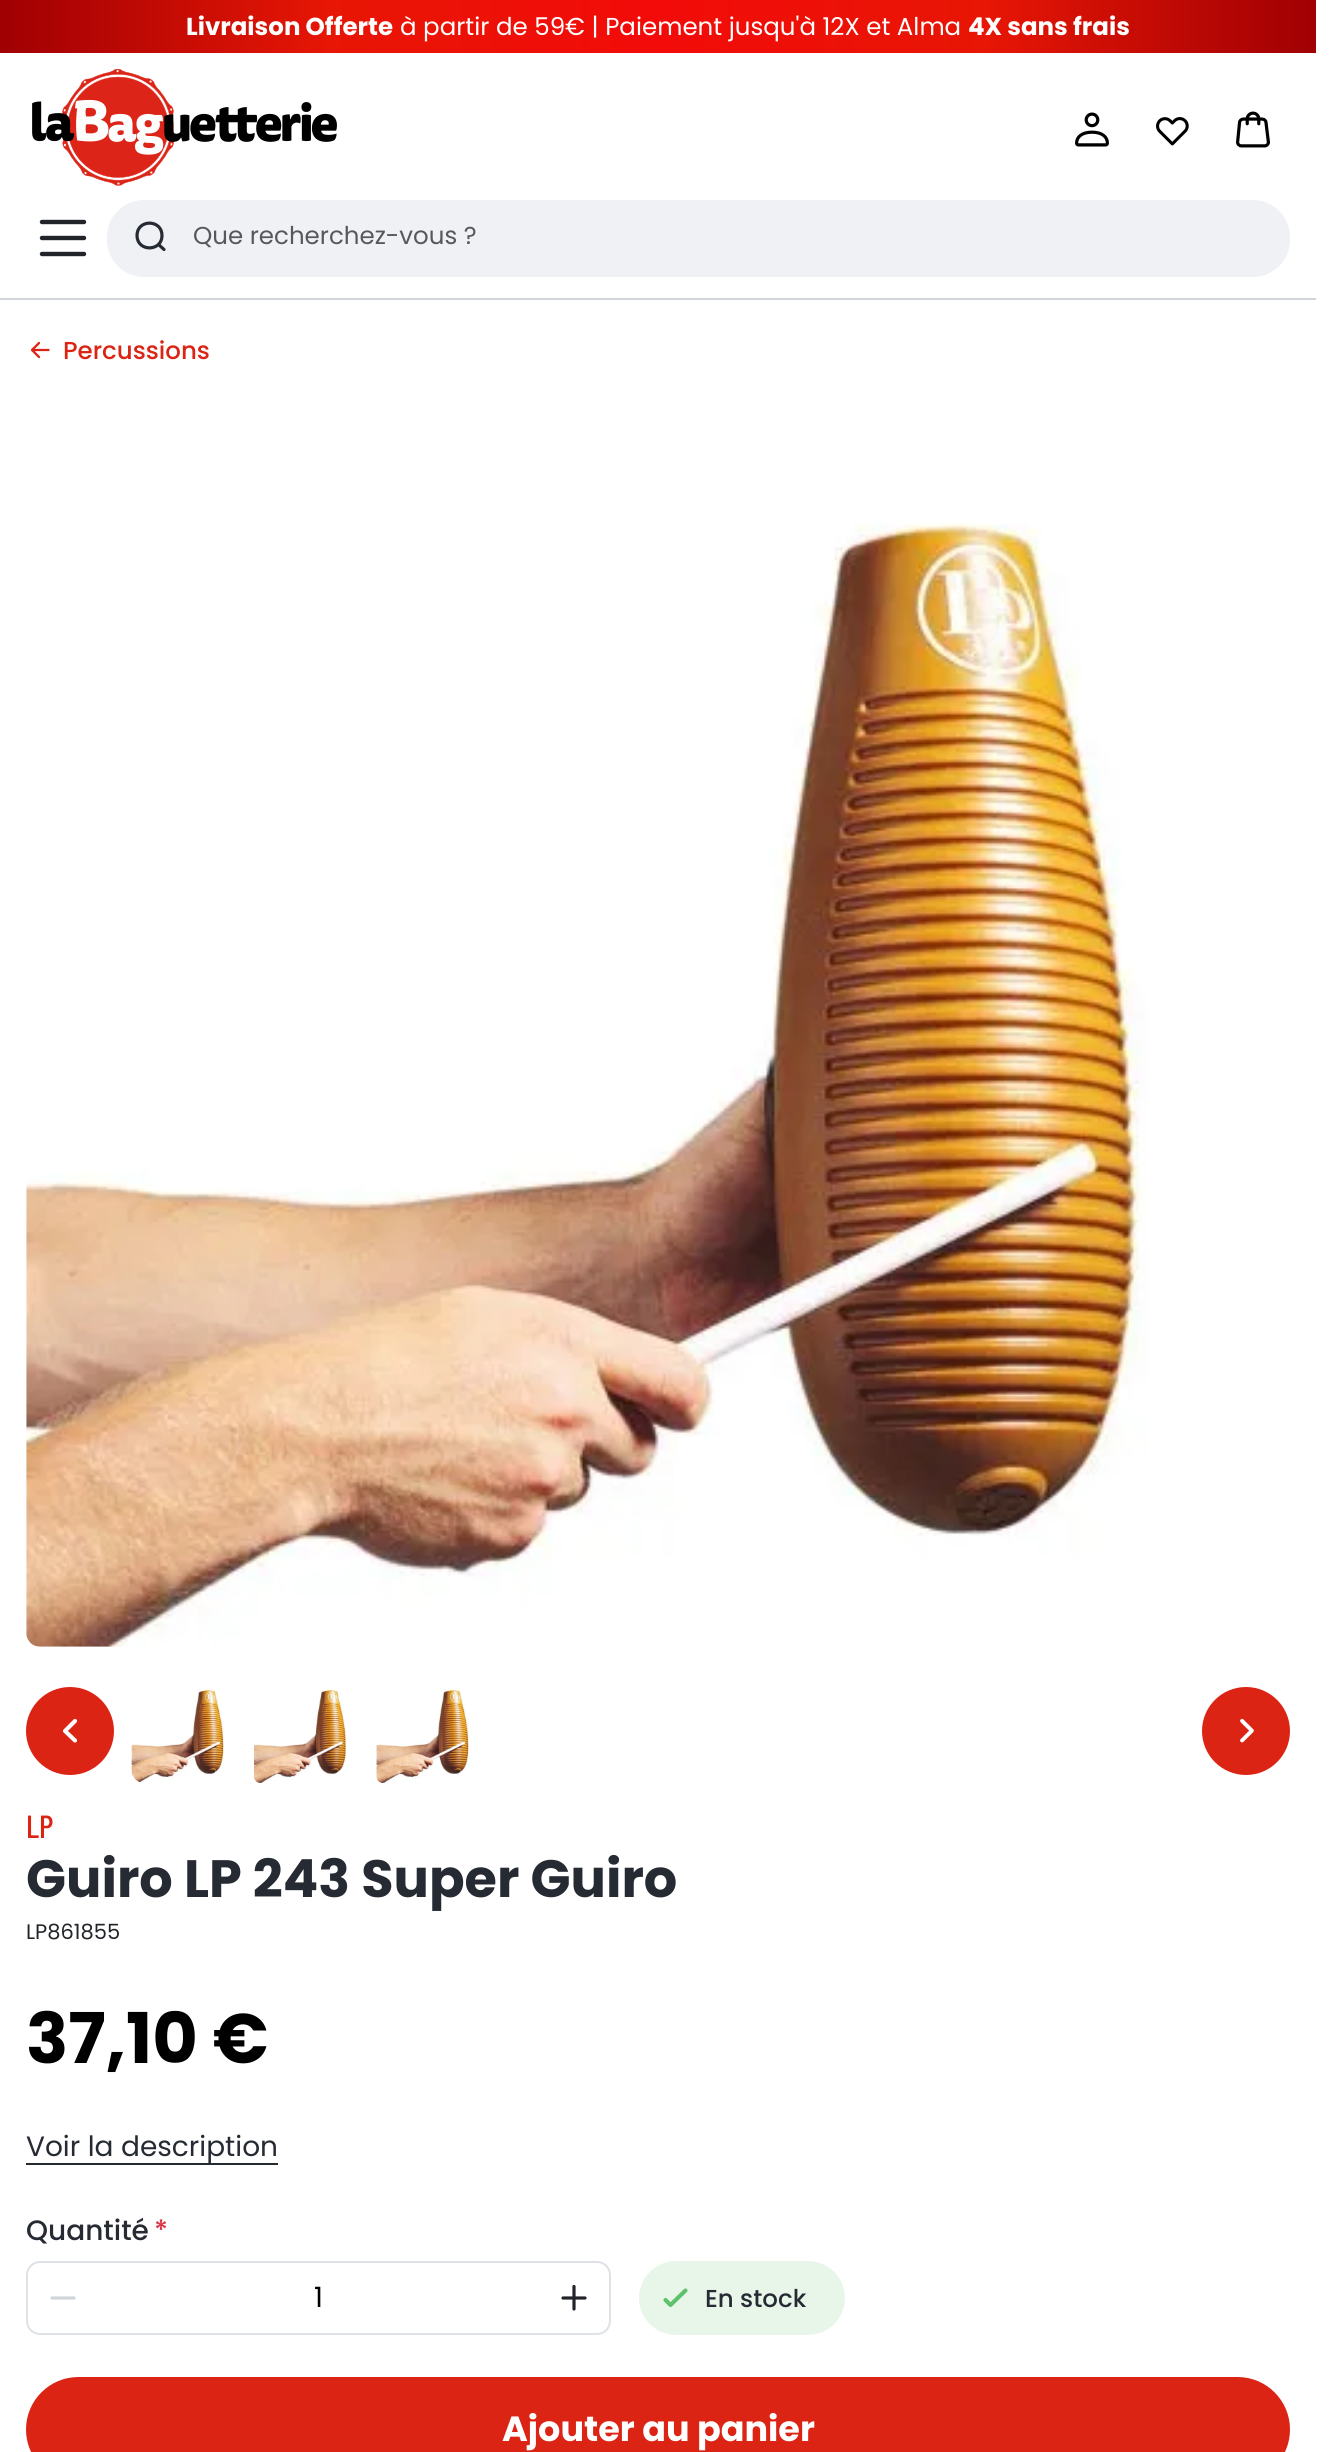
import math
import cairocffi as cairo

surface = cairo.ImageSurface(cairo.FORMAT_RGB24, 1341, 2452)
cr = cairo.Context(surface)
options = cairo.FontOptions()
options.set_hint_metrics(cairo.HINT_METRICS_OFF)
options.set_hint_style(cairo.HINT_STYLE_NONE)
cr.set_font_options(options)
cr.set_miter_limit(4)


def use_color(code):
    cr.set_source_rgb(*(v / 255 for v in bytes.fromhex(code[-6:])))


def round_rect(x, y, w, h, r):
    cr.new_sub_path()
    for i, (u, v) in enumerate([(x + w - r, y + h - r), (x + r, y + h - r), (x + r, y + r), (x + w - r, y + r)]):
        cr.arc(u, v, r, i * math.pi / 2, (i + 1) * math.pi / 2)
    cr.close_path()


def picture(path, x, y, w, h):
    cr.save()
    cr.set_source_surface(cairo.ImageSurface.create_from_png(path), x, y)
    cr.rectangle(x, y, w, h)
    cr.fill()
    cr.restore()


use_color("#ffffff")
cr.paint()
use_color("#d1d5db")
cr.rectangle(0, 298, 1316, 2)
cr.fill()
gradient = cairo.LinearGradient(0, 26, 1316, 26)
gradient.add_color_stop_rgba(0, 0.627, 0, 0.012, 1)
gradient.add_color_stop_rgba(0.25, 0.906, 0.086, 0.02, 1)
gradient.add_color_stop_rgba(0.5, 0.953, 0.043, 0.035, 1)
gradient.add_color_stop_rgba(0.75, 0.906, 0.086, 0.02, 1)
gradient.add_color_stop_rgba(1, 0.627, 0, 0.012, 1)
cr.set_source(gradient)
cr.rectangle(0, 0, 1316, 53)
cr.fill()
cr.select_font_face("Poppins", cairo.FONT_SLANT_NORMAL, cairo.FONT_WEIGHT_BOLD)
cr.set_font_size(24.5)
use_color("#ffffff")
cr.move_to(186, 35)
cr.show_text("Livraison Offerte")
cr.select_font_face("Poppins")
cr.move_to(400, 35)
cr.show_text("à partir de 59€ | Paiement jusqu'à 12X et Alma")
cr.select_font_face("Poppins", cairo.FONT_SLANT_NORMAL, cairo.FONT_WEIGHT_BOLD)
cr.move_to(968, 35)
cr.show_text("4X sans frais")
picture("img1.png", 32, 69, 305, 117)
picture("img2.png", 1075, 112, 34, 35)
picture("img3.png", 1156, 117, 33, 29)
picture("img4.png", 1236, 111, 34, 37)
cr.new_path()
cr.move_to(84, 254)
cr.line_to(42, 254)
cr.move_to(84, 238)
cr.line_to(42, 238)
cr.move_to(84, 222)
cr.line_to(42, 222)
use_color("#212529")
cr.set_line_width(4.4)
cr.set_line_cap(cairo.LINE_CAP_ROUND)
cr.stroke()
use_color("#eff1f4")
round_rect(108, 201, 1181, 75, 36)
cr.fill_preserve()
cr.set_line_width(2)
cr.set_line_cap(cairo.LINE_CAP_BUTT)
cr.stroke()
cr.new_path()
cr.move_to(158.5, 244.5)
cr.line_to(164, 249.5)
cr.move_to(162, 235.5)
cr.curve_to(162, 252, 137, 252, 137, 235.5)
cr.curve_to(137, 219, 162, 219, 162, 235.5)
cr.close_path()
use_color("#262a32")
cr.set_line_width(3.2)
cr.set_line_cap(cairo.LINE_CAP_ROUND)
cr.stroke()
cr.select_font_face("Poppins")
use_color("#55585c")
cr.move_to(193, 244)
cr.show_text("Que recherchez-vous ?")
cr.new_path()
cr.move_to(39, 357)
cr.line_to(32, 350)
cr.move_to(32, 350)
cr.line_to(39, 343)
cr.move_to(32, 350)
cr.line_to(48.5, 350)
use_color("#dc2415")
cr.set_line_width(2.3)
cr.set_line_join(cairo.LINE_JOIN_ROUND)
cr.stroke()
cr.select_font_face("Poppins Medium")
cr.move_to(63, 359)
cr.show_text("Percussions")
picture("img5.png", 26, 522, 1122, 1125)
cr.arc(70, 1731, 44, 0, 2 * math.pi)
cr.fill()
cr.new_path()
cr.move_to(75, 1740.5)
cr.line_to(65, 1731)
cr.line_to(75, 1721)
use_color("#ffffff")
cr.set_line_width(4.1)
cr.stroke()
picture("img6.png", 131, 1689, 93, 94)
picture("img7.png", 254, 1689, 93, 94)
picture("img8.png", 376, 1689, 93, 94)
use_color("#dc2415")
cr.arc(1246, 1731, 44, 0, 2 * math.pi)
cr.fill()
picture("img9.png", 1240, 1718, 14, 25)
cr.select_font_face("Barlow Condensed Medium")
cr.set_font_size(32)
cr.move_to(26, 1838)
cr.show_text("LP")
cr.select_font_face("Poppins", cairo.FONT_SLANT_NORMAL, cairo.FONT_WEIGHT_BOLD)
cr.set_font_size(52.5)
use_color("#262a32")
cr.move_to(26, 1897)
cr.show_text("Guiro LP 243 Super Guiro")
cr.select_font_face("Poppins")
cr.set_font_size(21)
use_color("#212529")
cr.move_to(26, 1939)
cr.show_text("LP861855")
cr.select_font_face("Poppins", cairo.FONT_SLANT_NORMAL, cairo.FONT_WEIGHT_BOLD)
cr.set_font_size(70)
use_color("#000000")
cr.move_to(26, 2063)
cr.show_text("37,10 €")
use_color("#262a32")
cr.rectangle(26, 2163, 252, 2)
cr.fill()
cr.select_font_face("Poppins")
cr.set_font_size(28)
cr.move_to(26, 2156)
cr.show_text("Voir la description")
cr.select_font_face("Poppins Medium")
cr.move_to(26, 2240)
cr.show_text("Quantité")
use_color("#dc3545")
cr.move_to(154, 2240)
cr.show_text("*")
round_rect(27, 2262, 583, 72, 13)
use_color("#dee2e6")
cr.set_line_width(2)
cr.set_line_cap(cairo.LINE_CAP_BUTT)
cr.set_line_join(cairo.LINE_JOIN_MITER)
cr.stroke()
cr.new_path()
cr.move_to(52, 2298)
cr.line_to(74, 2298)
use_color("#d1d5db")
cr.set_line_width(3.2)
cr.set_line_cap(cairo.LINE_CAP_ROUND)
cr.set_line_join(cairo.LINE_JOIN_ROUND)
cr.stroke()
cr.select_font_face("Poppins")
use_color("#000000")
cr.move_to(314, 2307)
cr.show_text("1")
cr.new_path()
cr.move_to(574, 2286.5)
cr.line_to(574, 2309)
cr.move_to(563, 2298)
cr.line_to(585, 2298)
use_color("#212529")
cr.stroke()
use_color("#e8f6ea")
round_rect(639, 2261, 206, 74, 37)
cr.fill()
cr.new_path()
cr.move_to(685.5, 2290.5)
cr.line_to(670.5, 2305)
cr.line_to(665.5, 2300)
use_color("#5ec26a")
cr.set_line_width(4.1)
cr.stroke()
cr.select_font_face("Poppins Medium")
cr.set_font_size(24.5)
use_color("#262a32")
cr.move_to(705, 2307)
cr.show_text("En stock")
use_color("#dc2415")
round_rect(27, 2378, 1262, 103, 51.5)
cr.fill_preserve()
cr.set_line_width(2)
cr.set_line_cap(cairo.LINE_CAP_BUTT)
cr.set_line_join(cairo.LINE_JOIN_MITER)
cr.stroke()
cr.select_font_face("Poppins", cairo.FONT_SLANT_NORMAL, cairo.FONT_WEIGHT_BOLD)
cr.set_font_size(35)
use_color("#ffffff")
cr.move_to(502, 2441)
cr.show_text("Ajouter au panier")
surface.write_to_png("result.png")
